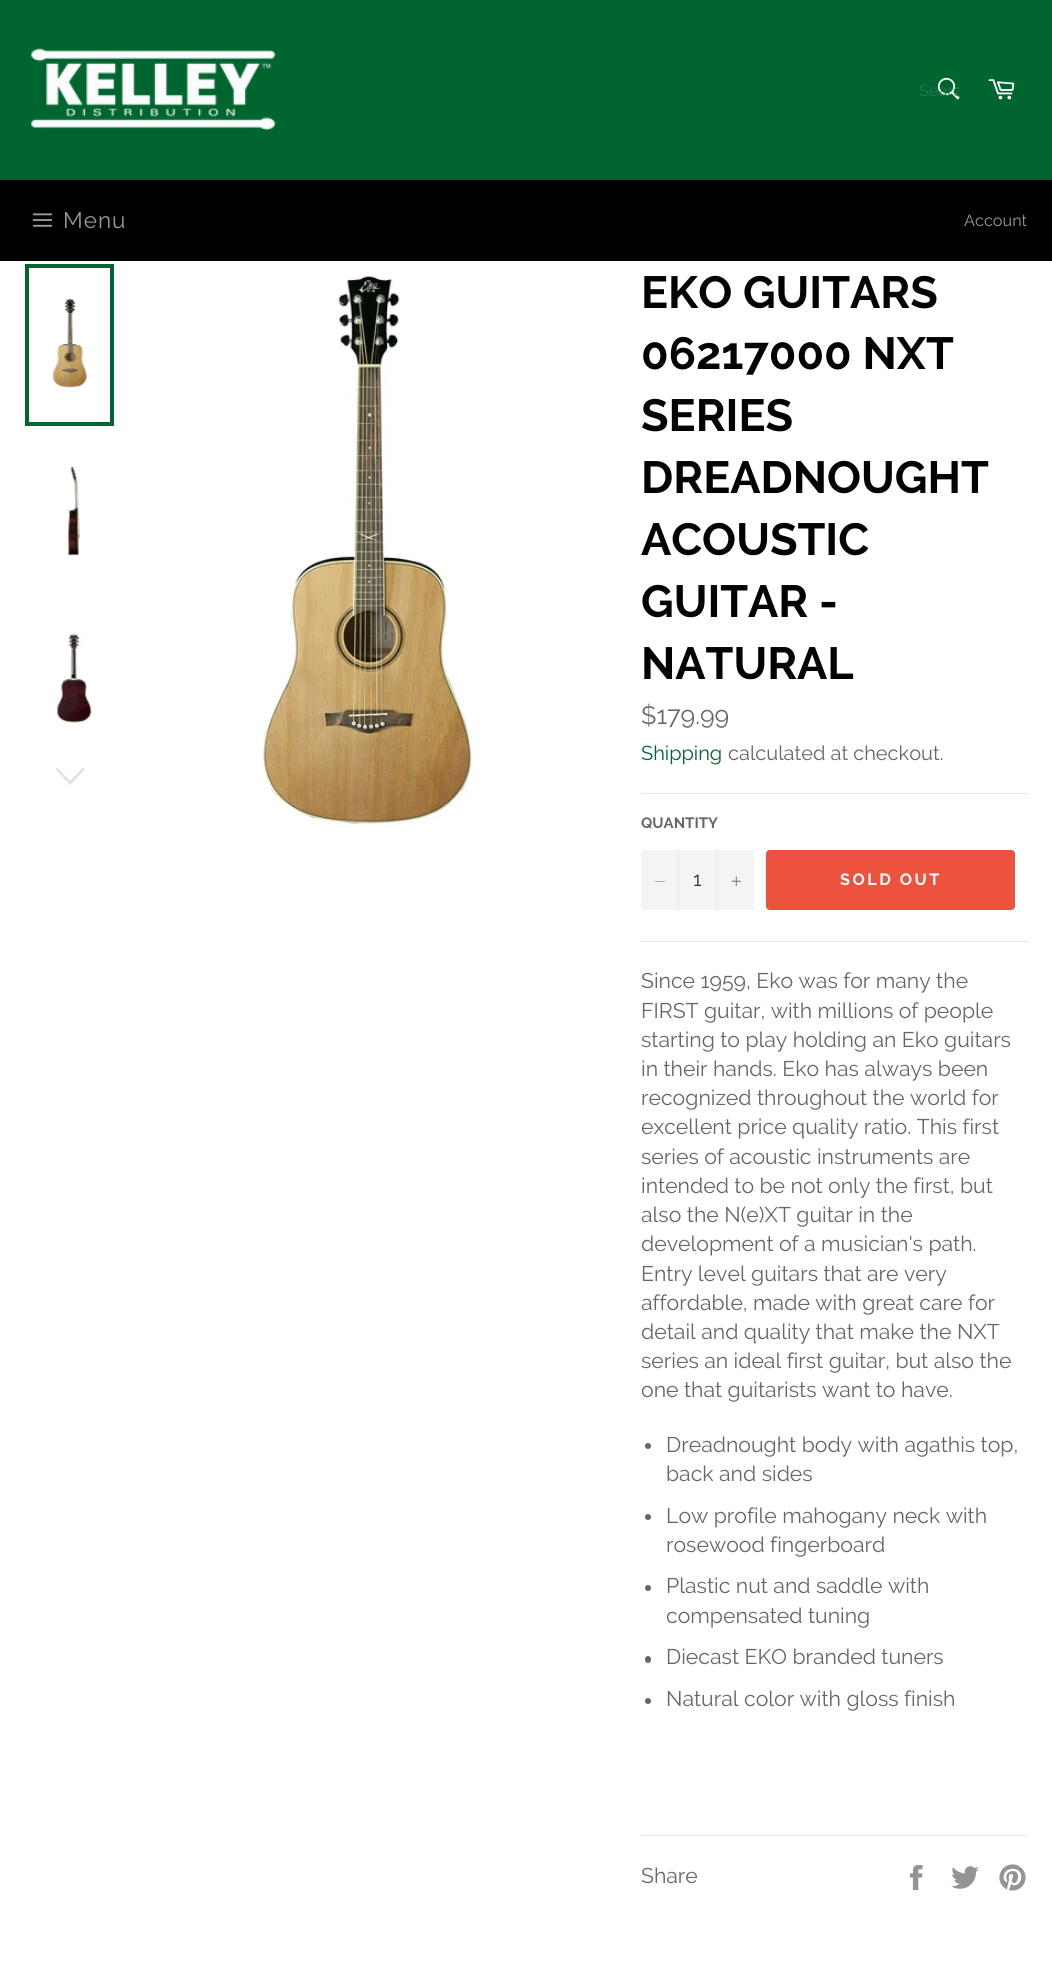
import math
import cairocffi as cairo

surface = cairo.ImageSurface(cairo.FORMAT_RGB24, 1052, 1978)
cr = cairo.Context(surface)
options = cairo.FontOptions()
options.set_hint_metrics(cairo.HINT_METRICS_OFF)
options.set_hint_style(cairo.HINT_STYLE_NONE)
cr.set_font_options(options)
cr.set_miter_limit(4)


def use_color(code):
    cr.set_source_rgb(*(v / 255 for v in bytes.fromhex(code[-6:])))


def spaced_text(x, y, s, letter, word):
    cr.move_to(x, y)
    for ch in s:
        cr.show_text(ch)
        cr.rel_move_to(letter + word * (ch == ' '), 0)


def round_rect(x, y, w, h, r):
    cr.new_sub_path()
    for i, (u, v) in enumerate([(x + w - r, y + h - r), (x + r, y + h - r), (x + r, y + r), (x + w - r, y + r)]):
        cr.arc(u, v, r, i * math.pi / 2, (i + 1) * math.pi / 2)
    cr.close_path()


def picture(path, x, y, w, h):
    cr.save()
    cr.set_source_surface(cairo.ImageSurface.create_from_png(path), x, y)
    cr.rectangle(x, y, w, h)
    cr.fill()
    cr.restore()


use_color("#01652f")
cr.paint()
picture("img1.png", 31, 48, 245, 83)
picture("img2.png", 937, 77, 23, 23)
cr.save()
cr.rectangle(919, 81, 40, 19)
cr.clip()
cr.select_font_face("Raleway")
cr.set_font_size(16.25)
use_color("#23794a")
cr.move_to(919, 96)
cr.show_text("Searc")
cr.restore()
picture("img3.png", 988, 79, 27, 21)
use_color("#000000")
cr.rectangle(0, 180, 1052, 81)
cr.fill()
picture("img4.png", 32, 213, 21, 14)
cr.select_font_face("Raleway")
cr.set_font_size(22.5)
use_color("#999999")
spaced_text(63, 228, "Menu", 1, 0)
cr.set_font_size(16.25)
cr.move_to(964, 226)
cr.show_text("Account")
use_color("#ffffff")
cr.rectangle(0, 261, 1052, 1717)
cr.fill()
picture("img5.png", 52, 299, 36, 89)
cr.rectangle(27, 266, 85, 158)
use_color("#01652f")
cr.set_line_width(4)
cr.stroke()
picture("img6.png", 67, 466, 13, 90)
picture("img7.png", 56, 634, 37, 89)
use_color("#e0e0e0")
cr.new_path()
cr.move_to(83, 767.5)
cr.line_to(84.5, 769.5)
cr.line_to(70, 785)
cr.line_to(55.5, 769.5)
cr.line_to(57, 767.5)
cr.line_to(70, 781)
cr.close_path()
cr.fill()
picture("img8.png", 262, 275, 211, 550)
cr.select_font_face("Raleway", cairo.FONT_SLANT_NORMAL, cairo.FONT_WEIGHT_BOLD)
cr.set_font_size(45)
use_color("#030303")
cr.move_to(641, 308)
cr.show_text("EKO GUITARS")
cr.move_to(641, 369)
cr.show_text("06217000 NXT")
cr.move_to(641, 431)
cr.show_text("SERIES")
cr.move_to(641, 493)
cr.show_text("DREADNOUGHT")
cr.move_to(641, 555)
cr.show_text("ACOUSTIC")
cr.move_to(641, 617)
cr.show_text("GUITAR -")
cr.move_to(641, 679)
cr.show_text("NATURAL")
cr.select_font_face("Raleway")
cr.set_font_size(25)
use_color("#666666")
cr.move_to(641, 724)
cr.show_text("$179.99")
cr.set_font_size(20)
use_color("#01652f")
cr.move_to(641, 760)
cr.show_text("Shipping")
use_color("#666666")
cr.move_to(728, 760)
cr.show_text("calculated at checkout.")
use_color("#e6e6e6")
cr.rectangle(641, 793, 387, 1)
cr.fill()
cr.select_font_face("Raleway", cairo.FONT_SLANT_NORMAL, cairo.FONT_WEIGHT_BOLD)
cr.set_font_size(15)
use_color("#666666")
cr.move_to(641, 828)
cr.show_text("QUANTITY")
use_color("#f4f4f4")
cr.rectangle(641, 850, 113, 60)
cr.fill()
use_color("#e7e7e7")
cr.rectangle(678, 850, 1, 60)
cr.fill()
use_color("#666666")
cr.set_fill_rule(cairo.FILL_RULE_EVEN_ODD)
cr.new_path()
cr.move_to(665, 881)
cr.line_to(665, 881.5)
cr.line_to(655, 881.5)
cr.line_to(655, 881)
cr.close_path()
cr.fill()
cr.select_font_face("Raleway")
cr.set_font_size(20)
use_color("#333333")
cr.move_to(693, 886)
cr.show_text("1")
use_color("#e7e7e7")
cr.rectangle(716, 850, 1, 60)
cr.fill()
picture("img9.png", 731, 876, 10, 10)
use_color("#ec523e")
round_rect(766, 850, 249, 60, 4)
cr.fill()
cr.select_font_face("Raleway", cairo.FONT_SLANT_NORMAL, cairo.FONT_WEIGHT_BOLD)
cr.set_font_size(16.25)
use_color("#ffffff")
spaced_text(840, 885, "SOLD OUT", 2.5, 0)
use_color("#e6e6e6")
cr.rectangle(641, 941, 387, 1)
cr.fill()
cr.select_font_face("Raleway")
cr.set_font_size(21.25)
use_color("#666666")
cr.move_to(641, 988)
cr.show_text("Since 1959, Eko was for many the")
cr.move_to(641, 1018)
cr.show_text("FIRST guitar, with millions of people")
cr.move_to(641, 1047)
cr.show_text("starting to play holding an Eko guitars")
cr.move_to(641, 1076)
cr.show_text("in their hands. Eko has always been")
cr.move_to(641, 1105)
cr.show_text("recognized throughout the world for")
cr.move_to(641, 1134)
cr.show_text("excellent price quality ratio. This first")
cr.move_to(641, 1164)
cr.show_text("series of acoustic instruments are")
cr.move_to(641, 1193)
cr.show_text("intended to be not only the first, but")
cr.move_to(641, 1222)
cr.show_text("also the N(e)XT guitar in the")
cr.move_to(641, 1251)
cr.show_text("development of a musician's path.")
cr.move_to(641, 1281)
cr.show_text("Entry level guitars that are very")
cr.move_to(641, 1310)
cr.show_text("affordable, made with great care for")
cr.move_to(641, 1339)
cr.show_text("detail and quality that make the NXT")
cr.move_to(641, 1368)
cr.show_text("series an ideal first guitar, but also the")
cr.move_to(641, 1397)
cr.show_text("one that guitarists want to have.")
cr.new_path()
cr.arc(648, 1446, 3, 0, 2 * math.pi)
cr.fill()
cr.move_to(666, 1452)
cr.show_text("Dreadnought body with agathis top,")
cr.move_to(666, 1481)
cr.show_text("back and sides")
cr.new_path()
cr.arc(648, 1517, 3, 0, 2 * math.pi)
cr.fill()
cr.move_to(666, 1523)
cr.show_text("Low profile mahogany neck with")
cr.move_to(666, 1552)
cr.show_text("rosewood fingerboard")
cr.new_path()
cr.arc(648, 1588, 3, 0, 2 * math.pi)
cr.fill()
cr.move_to(666, 1593)
cr.show_text("Plastic nut and saddle with")
cr.move_to(666, 1623)
cr.show_text("compensated tuning")
round_rect(645, 1656, 6, 7, 3)
cr.fill()
cr.move_to(666, 1664)
cr.show_text("Diecast EKO branded tuners")
cr.new_path()
cr.arc(648, 1701, 3, 0, 2 * math.pi)
cr.fill()
cr.move_to(666, 1706)
cr.show_text("Natural color with gloss finish")
use_color("#e6e6e6")
cr.rectangle(641, 1835, 387, 1)
cr.fill()
use_color("#666666")
cr.move_to(641, 1883)
cr.show_text("Share")
picture("img10.png", 910, 1865, 13, 25)
picture("img11.png", 951, 1866, 28, 23)
picture("img12.png", 999, 1864, 27, 27)
surface.write_to_png("result.png")
